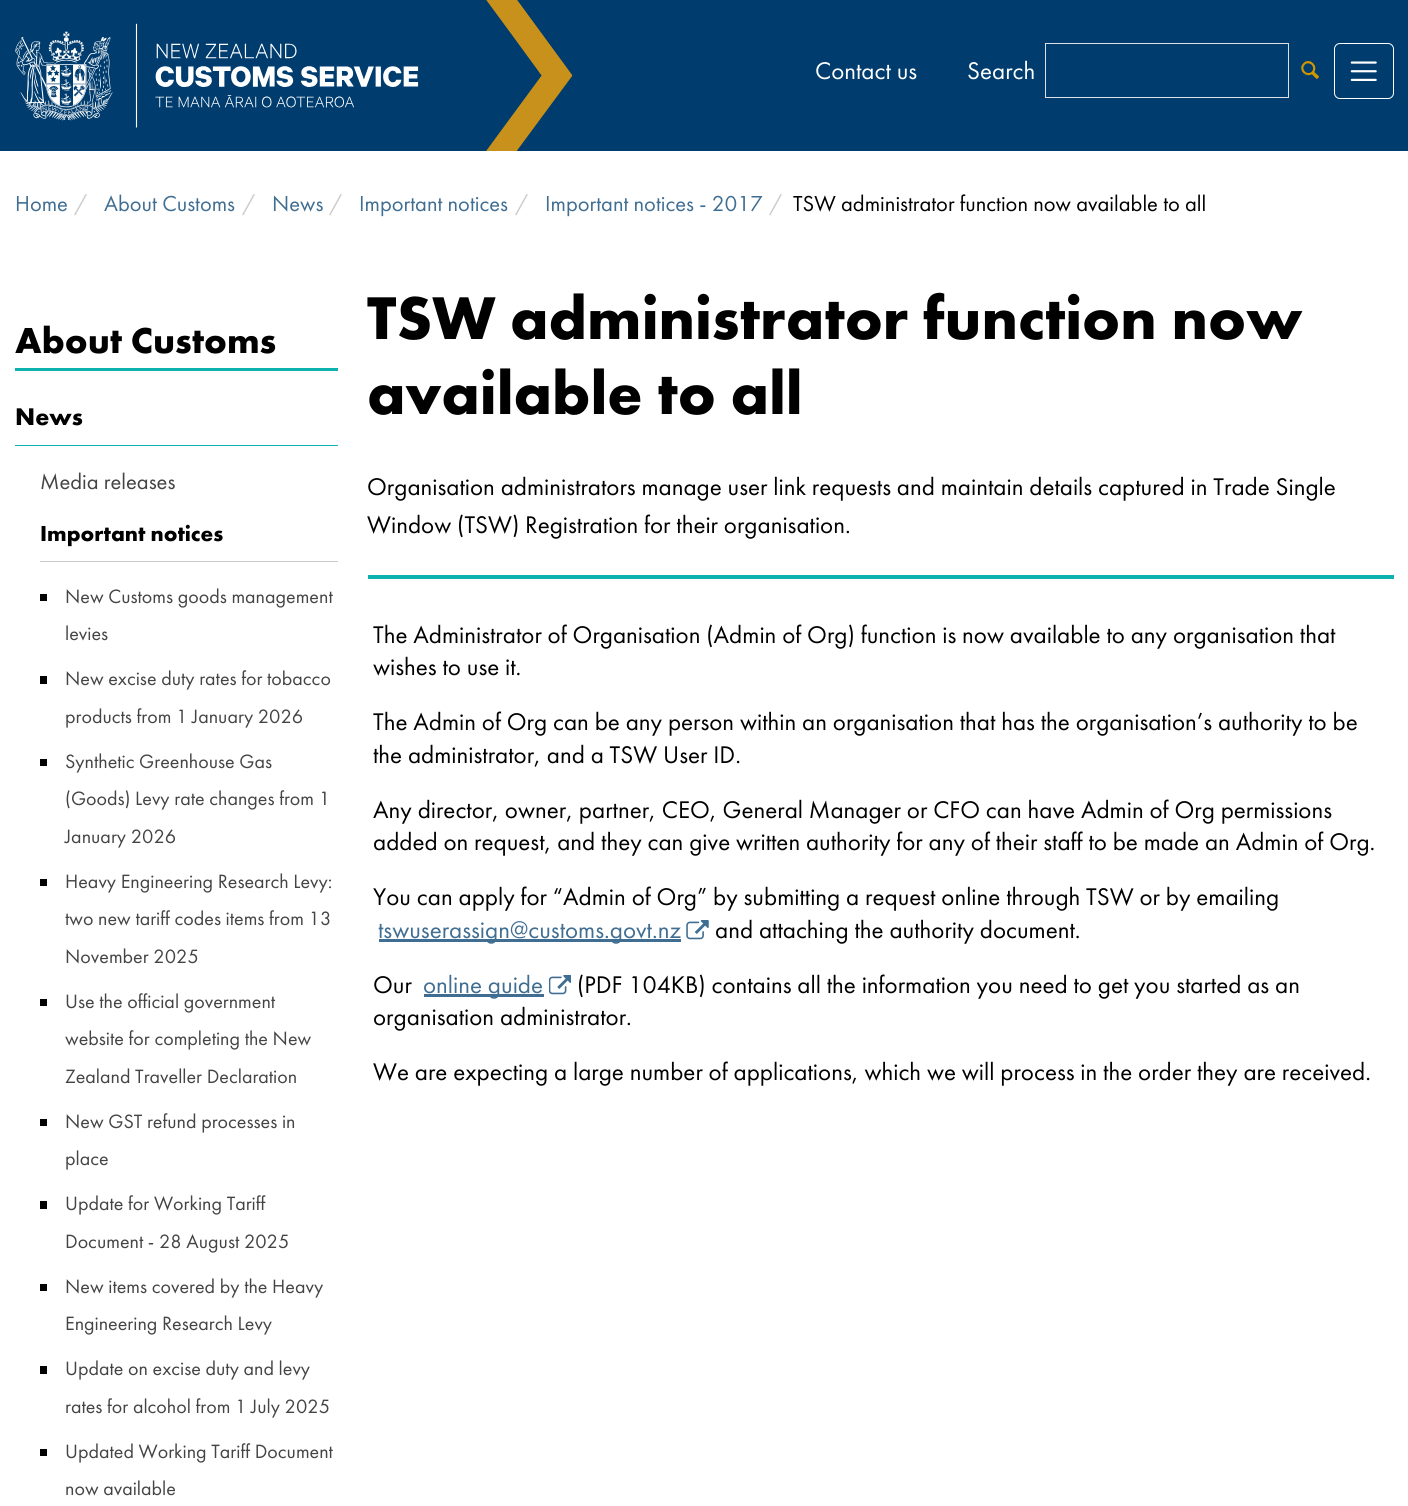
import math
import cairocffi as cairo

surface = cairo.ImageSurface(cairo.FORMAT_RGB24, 1408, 1506)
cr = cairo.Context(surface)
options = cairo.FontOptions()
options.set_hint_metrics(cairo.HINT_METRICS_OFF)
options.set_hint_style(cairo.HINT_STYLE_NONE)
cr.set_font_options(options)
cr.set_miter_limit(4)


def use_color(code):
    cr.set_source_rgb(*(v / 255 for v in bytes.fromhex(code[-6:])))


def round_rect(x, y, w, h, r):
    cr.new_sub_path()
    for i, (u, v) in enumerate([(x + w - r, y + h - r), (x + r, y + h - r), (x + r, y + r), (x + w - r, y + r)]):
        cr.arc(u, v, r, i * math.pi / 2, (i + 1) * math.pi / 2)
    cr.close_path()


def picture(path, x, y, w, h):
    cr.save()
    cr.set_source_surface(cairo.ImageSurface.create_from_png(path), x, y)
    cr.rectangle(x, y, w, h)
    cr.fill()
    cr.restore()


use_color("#ffffff")
cr.paint()
use_color("#003d6e")
cr.rectangle(0, 0, 1408, 151)
cr.fill()
picture("img1.png", 15, 0, 558, 151)
cr.select_font_face("Futura PT")
cr.set_font_size(25)
use_color("#ffffff")
cr.move_to(815, 79)
cr.show_text("Contact us")
cr.move_to(967, 79)
cr.show_text("Search")
cr.rectangle(1045.5, 43.5, 243, 54)
use_color("#dee2e6")
cr.set_line_width(1)
cr.stroke()
picture("img2.png", 1301, 61, 18, 18)
round_rect(1334.5, 43.5, 59, 55, 5.5)
use_color("#ffffff")
cr.stroke()
picture("img3.png", 1350, 61, 27, 20)
cr.set_font_size(22.5)
use_color("#406e92")
cr.move_to(15, 211)
cr.show_text("Home")
use_color("#cccccc")
cr.move_to(74, 211)
cr.show_text("/")
use_color("#406e92")
cr.move_to(104, 211)
cr.show_text("About Customs")
use_color("#cccccc")
cr.move_to(242, 211)
cr.show_text("/")
use_color("#406e92")
cr.move_to(272, 211)
cr.show_text("News")
use_color("#cccccc")
cr.move_to(329, 211)
cr.show_text("/")
use_color("#406e92")
cr.move_to(359, 211)
cr.show_text("Important notices")
use_color("#cccccc")
cr.move_to(515, 211)
cr.show_text("/")
use_color("#406e92")
cr.move_to(545, 211)
cr.show_text("Important notices - 2017")
use_color("#cccccc")
cr.move_to(769, 211)
cr.show_text("/")
use_color("#000000")
cr.move_to(793, 211)
cr.show_text("TSW administrator function now available to all")
use_color("#0db2ad")
cr.rectangle(15, 368, 323, 3)
cr.fill()
cr.select_font_face("Futura PT", cairo.FONT_SLANT_NORMAL, cairo.FONT_WEIGHT_BOLD)
cr.set_font_size(37.5)
use_color("#000000")
cr.move_to(15, 353)
cr.show_text("About Customs")
cr.set_font_size(25)
cr.move_to(15, 425)
cr.show_text("News")
use_color("#0db2ad")
cr.rectangle(15, 445, 323, 1)
cr.fill()
cr.select_font_face("Futura PT")
cr.set_font_size(22.5)
use_color("#444444")
cr.move_to(40, 489)
cr.show_text("Media releases")
cr.select_font_face("Futura PT", cairo.FONT_SLANT_NORMAL, cairo.FONT_WEIGHT_BOLD)
use_color("#000000")
cr.move_to(40, 541)
cr.show_text("Important notices")
use_color("#cccccc")
cr.rectangle(40, 561, 298, 1)
cr.fill()
use_color("#000000")
cr.rectangle(40, 594, 7, 7)
cr.fill()
cr.select_font_face("Futura PT")
cr.set_font_size(20)
use_color("#444444")
cr.move_to(65, 603)
cr.show_text("New Customs goods management")
cr.move_to(65, 640)
cr.show_text("levies")
use_color("#000000")
cr.rectangle(40, 676, 7, 8)
cr.fill()
use_color("#444444")
cr.move_to(65, 685)
cr.show_text("New excise duty rates for tobacco")
cr.move_to(65, 723)
cr.show_text("products from 1 January 2026")
use_color("#000000")
cr.rectangle(40, 759, 7, 7)
cr.fill()
use_color("#444444")
cr.move_to(65, 768)
cr.show_text("Synthetic Greenhouse Gas")
cr.move_to(65, 805)
cr.show_text("(Goods) Levy rate changes from 1")
cr.move_to(65, 843)
cr.show_text("January 2026")
use_color("#000000")
cr.rectangle(40, 879, 7, 7)
cr.fill()
use_color("#444444")
cr.move_to(65, 888)
cr.show_text("Heavy Engineering Research Levy:")
cr.move_to(65, 925)
cr.show_text("two new tariff codes items from 13")
cr.move_to(65, 963)
cr.show_text("November 2025")
use_color("#000000")
cr.rectangle(40, 999, 7, 7)
cr.fill()
use_color("#444444")
cr.move_to(65, 1008)
cr.show_text("Use the official government")
cr.move_to(65, 1045)
cr.show_text("website for completing the New")
cr.move_to(65, 1083)
cr.show_text("Zealand Traveller Declaration")
use_color("#000000")
cr.rectangle(40, 1119, 7, 7)
cr.fill()
use_color("#444444")
cr.move_to(65, 1128)
cr.show_text("New GST refund processes in")
cr.move_to(65, 1165)
cr.show_text("place")
use_color("#000000")
cr.rectangle(40, 1201, 7, 8)
cr.fill()
use_color("#444444")
cr.move_to(65, 1210)
cr.show_text("Update for Working Tariff")
cr.move_to(65, 1248)
cr.show_text("Document - 28 August 2025")
use_color("#000000")
cr.rectangle(40, 1284, 7, 7)
cr.fill()
use_color("#444444")
cr.move_to(65, 1293)
cr.show_text("New items covered by the Heavy")
cr.move_to(65, 1330)
cr.show_text("Engineering Research Levy")
use_color("#000000")
cr.rectangle(40, 1366, 7, 8)
cr.fill()
use_color("#444444")
cr.move_to(65, 1375)
cr.show_text("Update on excise duty and levy")
cr.move_to(65, 1413)
cr.show_text("rates for alcohol from 1 July 2025")
use_color("#000000")
cr.rectangle(40, 1449, 7, 7)
cr.fill()
use_color("#444444")
cr.move_to(65, 1458)
cr.show_text("Updated Working Tariff Document")
cr.move_to(65, 1495)
cr.show_text("now available")
cr.select_font_face("Futura PT", cairo.FONT_SLANT_NORMAL, cairo.FONT_WEIGHT_BOLD)
cr.set_font_size(62.5)
use_color("#000000")
cr.move_to(367, 339)
cr.show_text("TSW administrator function now")
cr.move_to(367, 414)
cr.show_text("available to all")
cr.select_font_face("Futura PT")
cr.set_font_size(25)
cr.move_to(367, 495)
cr.show_text("Organisation administrators manage user link requests and maintain details captured in Trade Single")
cr.move_to(367, 533)
cr.show_text("Window (TSW) Registration for their organisation.")
use_color("#0db2ad")
cr.rectangle(368, 575, 1026, 4)
cr.fill()
use_color("#000000")
cr.move_to(373, 643)
cr.show_text("The Administrator of Organisation (Admin of Org) function is now available to any organisation that")
cr.move_to(373, 675)
cr.show_text("wishes to use it.")
cr.move_to(373, 730)
cr.show_text("The Admin of Org can be any person within an organisation that has the organisation’s authority to be")
cr.move_to(373, 763)
cr.show_text("the administrator, and a TSW User ID.")
cr.move_to(373, 818)
cr.show_text("Any director, owner, partner, CEO, General Manager or CFO can have Admin of Org permissions")
cr.move_to(373, 850)
cr.show_text("added on request, and they can give written authority for any of their staff to be made an Admin of Org.")
cr.move_to(373, 905)
cr.show_text("You can apply for “Admin of Org” by submitting a request online through TSW or by emailing")
use_color("#406e92")
cr.rectangle(379, 939, 302, 3)
cr.fill()
cr.move_to(378, 938)
cr.show_text("tswuserassign@customs.govt.nz")
picture("img4.png", 686, 920, 23, 20)
use_color("#000000")
cr.move_to(715, 938)
cr.show_text("and attaching the authority document.")
cr.move_to(373, 993)
cr.show_text("Our")
use_color("#406e92")
cr.rectangle(424, 994, 120, 3)
cr.fill()
cr.move_to(423, 993)
cr.show_text("online guide")
picture("img5.png", 549, 975, 22, 20)
use_color("#000000")
cr.move_to(577, 993)
cr.show_text("(PDF 104KB) contains all the information you need to get you started as an")
cr.move_to(373, 1025)
cr.show_text("organisation administrator.")
cr.move_to(373, 1080)
cr.show_text("We are expecting a large number of applications, which we will process in the order they are received.")
surface.write_to_png("result.png")
